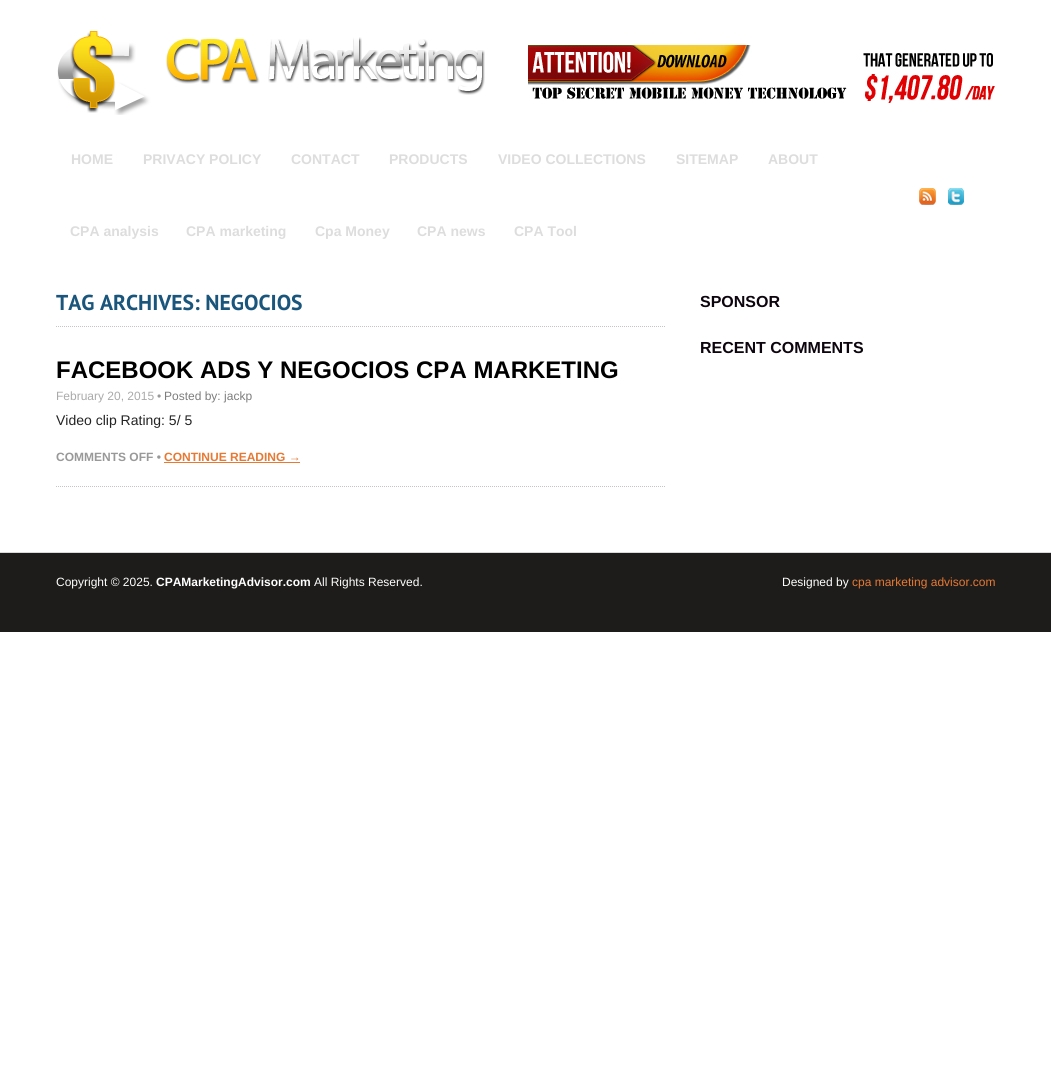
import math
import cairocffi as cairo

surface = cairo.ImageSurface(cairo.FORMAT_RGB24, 1051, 1088)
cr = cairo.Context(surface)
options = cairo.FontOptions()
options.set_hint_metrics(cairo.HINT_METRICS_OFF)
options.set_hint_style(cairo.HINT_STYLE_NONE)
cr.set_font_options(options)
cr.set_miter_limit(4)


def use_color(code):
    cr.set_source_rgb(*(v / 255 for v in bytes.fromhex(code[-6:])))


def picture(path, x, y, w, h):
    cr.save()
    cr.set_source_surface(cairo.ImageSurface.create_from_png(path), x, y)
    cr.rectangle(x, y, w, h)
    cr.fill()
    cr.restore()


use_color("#ffffff")
cr.paint()
picture("img1.png", 57, 31, 428, 84)
picture("img2.png", 528, 45, 467, 58)
cr.select_font_face("Liberation Sans", cairo.FONT_SLANT_NORMAL, cairo.FONT_WEIGHT_BOLD)
cr.set_font_size(14)
use_color("#dddddd")
cr.move_to(71, 164)
cr.show_text("HOME")
cr.move_to(143, 164)
cr.show_text("PRIVACY POLICY")
cr.move_to(291, 164)
cr.show_text("CONTACT")
cr.move_to(389, 164)
cr.show_text("PRODUCTS")
cr.move_to(498, 164)
cr.show_text("VIDEO COLLECTIONS")
cr.move_to(676, 164)
cr.show_text("SITEMAP")
cr.move_to(768, 164)
cr.show_text("ABOUT")
picture("img3.png", 919, 188, 17, 17)
picture("img4.png", 948, 188, 16, 17)
cr.move_to(70, 236)
cr.show_text("CPA analysis")
cr.move_to(186, 236)
cr.show_text("CPA marketing")
cr.move_to(315, 236)
cr.show_text("Cpa Money")
cr.move_to(417, 236)
cr.show_text("CPA news")
cr.move_to(514, 236)
cr.show_text("CPA Tool")
cr.new_path()
cr.move_to(56, 326.5)
cr.line_to(666, 326.5)
use_color("#c9c4c4")
cr.set_line_width(1)
cr.set_dash([1, 1])
cr.stroke()
cr.select_font_face("PT Sans", cairo.FONT_SLANT_NORMAL, cairo.FONT_WEIGHT_BOLD)
cr.set_font_size(21.6)
use_color("#1a557b")
cr.move_to(56, 310)
cr.show_text("TAG ARCHIVES: NEGOCIOS")
cr.new_path()
cr.move_to(56, 486.5)
cr.line_to(666, 486.5)
use_color("#c9c4c4")
cr.stroke()
cr.select_font_face("Liberation Sans", cairo.FONT_SLANT_NORMAL, cairo.FONT_WEIGHT_BOLD)
cr.set_font_size(24)
use_color("#000000")
cr.move_to(56, 378)
cr.show_text("FACEBOOK ADS Y NEGOCIOS CPA MARKETING")
cr.select_font_face("Liberation Sans")
cr.set_font_size(12)
use_color("#aaaaaa")
cr.move_to(56, 400)
cr.show_text("February 20, 2015")
use_color("#999999")
cr.move_to(157, 400)
cr.show_text("•")
use_color("#7d7d7d")
cr.move_to(164, 400)
cr.show_text("Posted by: jackp")
cr.set_font_size(14)
use_color("#242424")
cr.move_to(56, 425)
cr.show_text("Video clip Rating: 5/ 5")
cr.select_font_face("Liberation Sans", cairo.FONT_SLANT_NORMAL, cairo.FONT_WEIGHT_BOLD)
cr.set_font_size(12)
use_color("#999999")
cr.move_to(56, 461)
cr.show_text("COMMENTS OFF •")
use_color("#e67933")
cr.move_to(164, 461)
cr.show_text("CONTINUE READING →")
cr.rectangle(164, 462, 136, 1)
cr.fill()
cr.set_font_size(16)
use_color("#0d050d")
cr.move_to(700, 307)
cr.show_text("SPONSOR")
cr.move_to(700, 353)
cr.show_text("RECENT COMMENTS")
use_color("#1d1c1a")
cr.rectangle(0, 553, 1051, 79)
cr.fill()
use_color("#d9d9d9")
cr.rectangle(0, 552, 1051, 1)
cr.fill()
cr.select_font_face("Liberation Sans")
cr.set_font_size(12)
use_color("#ffffff")
cr.move_to(56, 586)
cr.show_text("Copyright © 2025.")
cr.select_font_face("Liberation Sans", cairo.FONT_SLANT_NORMAL, cairo.FONT_WEIGHT_BOLD)
cr.move_to(156, 586)
cr.show_text("CPAMarketingAdvisor.com")
cr.select_font_face("Liberation Sans")
cr.move_to(314, 586)
cr.show_text("All Rights Reserved.")
cr.move_to(782, 586)
cr.show_text("Designed by")
use_color("#e67933")
cr.move_to(852, 586)
cr.show_text("cpa marketing advisor.com")
surface.write_to_png("result.png")
